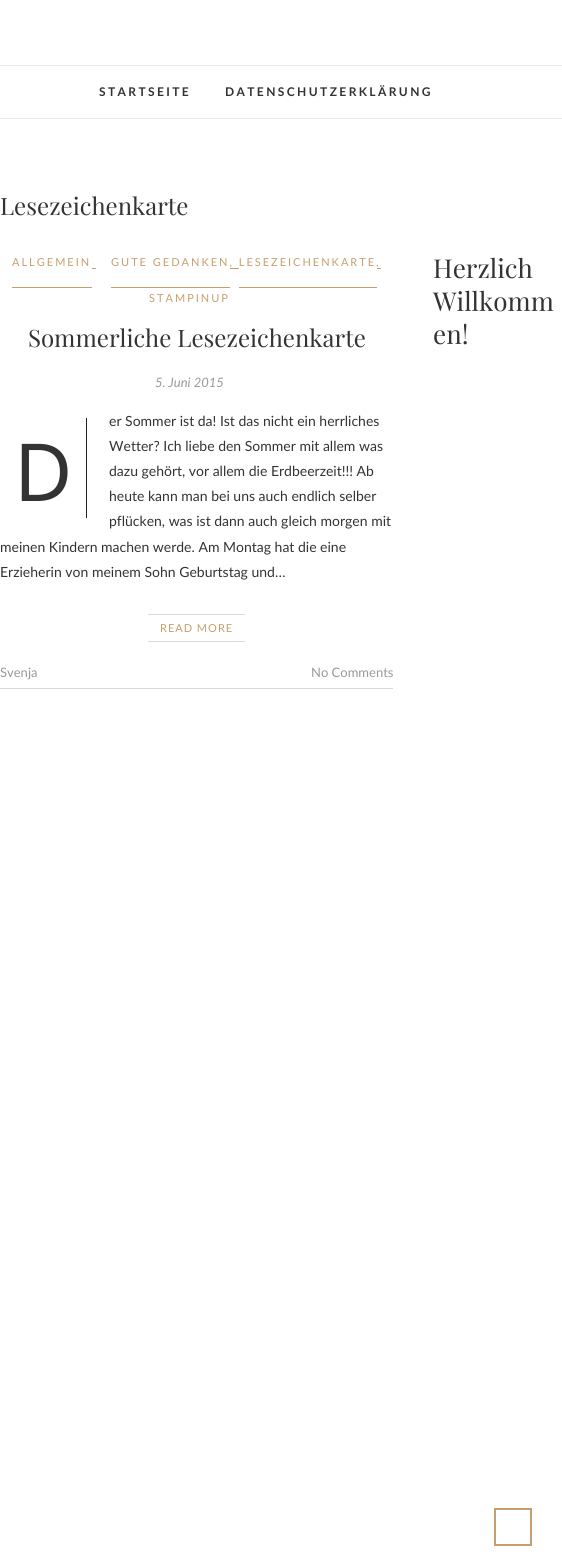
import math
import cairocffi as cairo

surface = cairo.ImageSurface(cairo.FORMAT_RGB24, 562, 1566)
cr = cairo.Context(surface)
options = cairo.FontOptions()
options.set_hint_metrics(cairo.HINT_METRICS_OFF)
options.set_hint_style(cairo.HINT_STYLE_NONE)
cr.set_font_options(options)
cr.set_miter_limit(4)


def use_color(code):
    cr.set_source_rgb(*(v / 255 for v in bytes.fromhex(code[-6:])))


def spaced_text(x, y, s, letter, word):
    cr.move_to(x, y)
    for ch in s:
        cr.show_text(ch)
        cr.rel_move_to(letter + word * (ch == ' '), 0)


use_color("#ffffff")
cr.paint()
use_color("#e6e6e6")
cr.rectangle(0, 65, 562, 1)
cr.fill()
cr.rectangle(0, 118, 562, 1)
cr.fill()
cr.select_font_face("Lato", cairo.FONT_SLANT_NORMAL, cairo.FONT_WEIGHT_BOLD)
cr.set_font_size(12)
use_color("#333333")
spaced_text(99, 96, "STARTSEITE", 2.4, 0)
spaced_text(225, 96, "DATENSCHUTZERKLÄRUNG", 2.4, 0)
cr.select_font_face("Playfair Display")
cr.set_font_size(24)
cr.move_to(0, 215)
cr.show_text("Lesezeichenkarte")
use_color("#c69f70")
cr.rectangle(12, 287, 80, 1)
cr.fill()
cr.rectangle(92, 268, 4, 1)
cr.fill()
cr.select_font_face("Lato")
cr.set_font_size(11)
spaced_text(12, 266, "ALLGEMEIN", 2, 0)
cr.rectangle(111, 287, 119, 1)
cr.fill()
cr.rectangle(230, 268, 9, 1)
cr.fill()
cr.rectangle(239, 287, 138, 1)
cr.fill()
cr.rectangle(377, 268, 4, 1)
cr.fill()
spaced_text(111, 266, "GUTE GEDANKEN, LESEZEICHENKARTE,", 2, 0)
spaced_text(149, 302, "STAMPINUP", 2, 0)
cr.select_font_face("Playfair Display")
cr.set_font_size(24)
use_color("#333333")
cr.move_to(28, 347)
cr.show_text("Sommerliche Lesezeichenkarte")
cr.select_font_face("Lato", cairo.FONT_SLANT_ITALIC)
cr.set_font_size(13)
use_color("#999999")
cr.move_to(155, 387)
cr.show_text("5. Juni 2015")
cr.select_font_face("Lato")
cr.set_font_size(14)
use_color("#333333")
cr.move_to(109, 426)
cr.show_text("er Sommer ist da! Ist das nicht ein herrliches")
use_color("#222222")
cr.rectangle(86, 418, 1, 100)
cr.fill()
cr.select_font_face("Noto Sans")
cr.set_font_size(80)
use_color("#333333")
cr.move_to(14, 501)
cr.show_text("D")
cr.select_font_face("Lato")
cr.set_font_size(14)
cr.move_to(109, 451)
cr.show_text("Wetter? Ich liebe den Sommer mit allem was")
cr.move_to(109, 476)
cr.show_text("dazu gehört, vor allem die Erdbeerzeit!!! Ab")
cr.move_to(109, 501)
cr.show_text("heute kann man bei uns auch endlich selber")
cr.move_to(109, 526)
cr.show_text("pflücken, was ist dann auch gleich morgen mit")
cr.move_to(0, 552)
cr.show_text("meinen Kindern machen werde. Am Montag hat die eine")
cr.move_to(0, 577)
cr.show_text("Erzieherin von meinem Sohn Geburtstag und…")
use_color("#d9d9d9")
cr.rectangle(0, 688, 393, 1)
cr.fill()
cr.rectangle(148, 614, 97, 1)
cr.fill()
cr.rectangle(148, 641, 97, 1)
cr.fill()
cr.set_font_size(11)
use_color("#c69f70")
spaced_text(160, 632, "READ MORE", 1, 0)
cr.set_font_size(13)
use_color("#999999")
cr.move_to(0, 677)
cr.show_text("Svenja")
cr.move_to(311, 677)
cr.show_text("No Comments")
cr.select_font_face("Playfair Display")
cr.set_font_size(26)
use_color("#333333")
cr.move_to(433, 278)
cr.show_text("Herzlich")
cr.move_to(433, 311)
cr.show_text("Willkomm")
cr.move_to(433, 344)
cr.show_text("en!")
cr.rectangle(495, 1509, 36, 36)
use_color("#c69f70")
cr.stroke()
surface.write_to_png("result.png")
